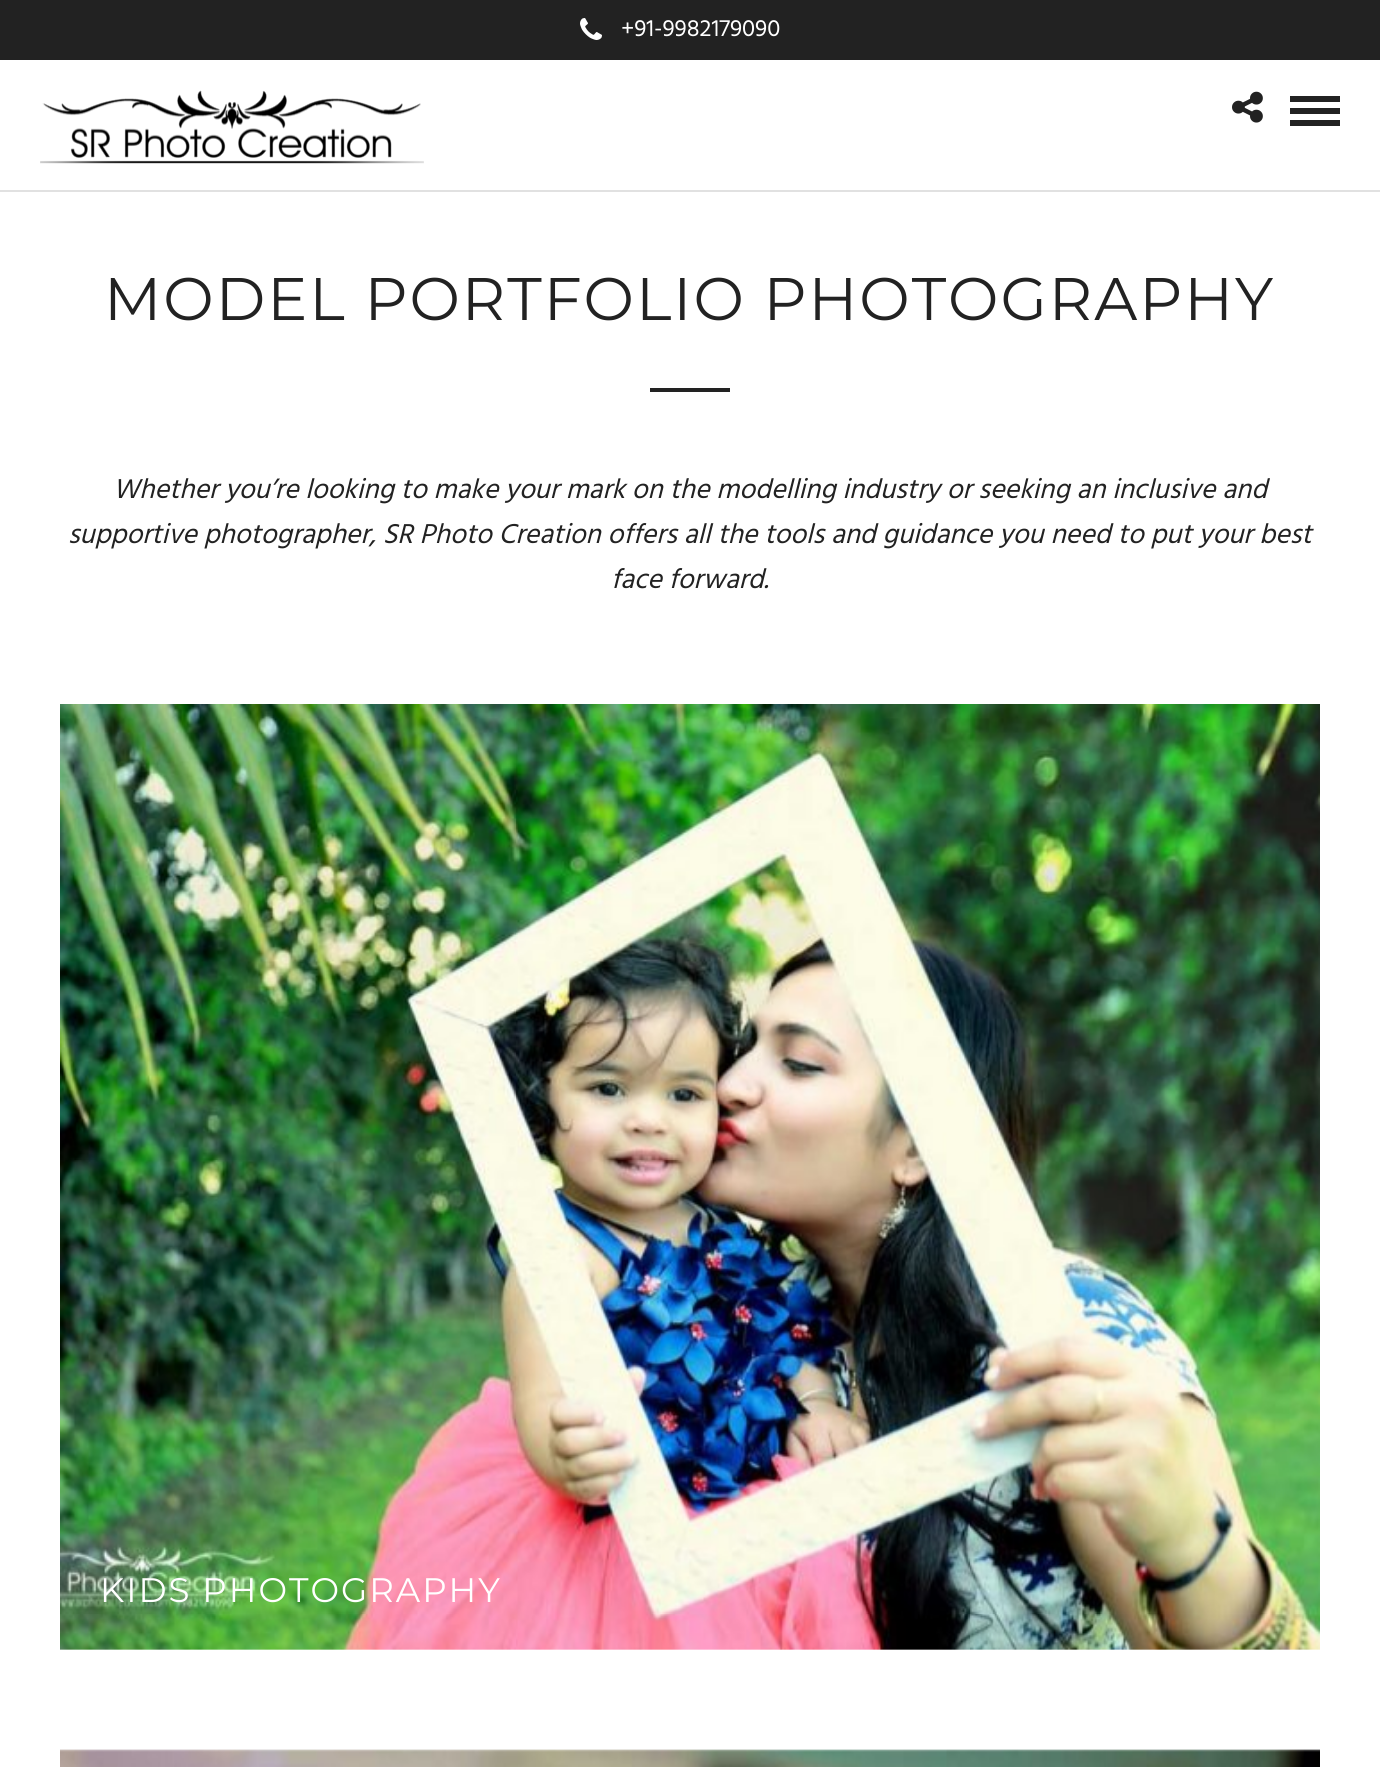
import math
import cairocffi as cairo

surface = cairo.ImageSurface(cairo.FORMAT_RGB24, 1380, 1767)
cr = cairo.Context(surface)
options = cairo.FontOptions()
options.set_hint_metrics(cairo.HINT_METRICS_OFF)
options.set_hint_style(cairo.HINT_STYLE_NONE)
cr.set_font_options(options)
cr.set_miter_limit(4)


def use_color(code):
    cr.set_source_rgb(*(v / 255 for v in bytes.fromhex(code[-6:])))


def spaced_text(x, y, s, letter, word):
    cr.move_to(x, y)
    for ch in s:
        cr.show_text(ch)
        cr.rel_move_to(letter + word * (ch == ' '), 0)


def picture(path, x, y, w, h):
    cr.save()
    cr.set_source_surface(cairo.ImageSurface.create_from_png(path), x, y)
    cr.rectangle(x, y, w, h)
    cr.fill()
    cr.restore()


use_color("#ffffff")
cr.paint()
use_color("#222222")
cr.rectangle(0, 0, 1380, 60)
cr.fill()
picture("img1.png", 580, 18, 22, 22)
cr.select_font_face("Hind")
cr.set_font_size(24)
use_color("#ffffff")
cr.move_to(621, 36)
cr.show_text("+91-9982179090")
use_color("#e1e1e1")
cr.rectangle(0, 190, 1380, 2)
cr.fill()
picture("img2.png", 40, 90, 384, 74)
picture("img3.png", 1232, 91, 31, 32)
use_color("#222222")
cr.rectangle(1290, 96, 50, 6)
cr.fill()
cr.rectangle(1290, 108, 50, 6)
cr.fill()
cr.rectangle(1290, 120, 50, 6)
cr.fill()
cr.select_font_face("Montserrat Thin")
cr.set_font_size(60)
spaced_text(104, 320, "MODEL PORTFOLIO PHOTOGRAPHY", 2, 0)
cr.rectangle(650, 388, 80, 4)
cr.fill()
cr.select_font_face("Hind", cairo.FONT_SLANT_ITALIC)
cr.set_font_size(28)
cr.move_to(113, 498)
cr.show_text("Whether you’re looking to make your mark on the modelling industry or seeking an inclusive and")
cr.move_to(68, 543)
cr.show_text("supportive photographer, SR Photo Creation offers all the tools and guidance you need to put your best")
cr.move_to(611, 588)
cr.show_text("face forward.")
picture("img4.png", 60, 704, 1260, 946)
cr.select_font_face("Montserrat Thin")
cr.set_font_size(34)
use_color("#ffffff")
spaced_text(100, 1602, "KIDS PHOTOGRAPHY", 2, 0)
picture("img5.png", 60, 1749, 1260, 18)
surface.write_to_png("result.png")
